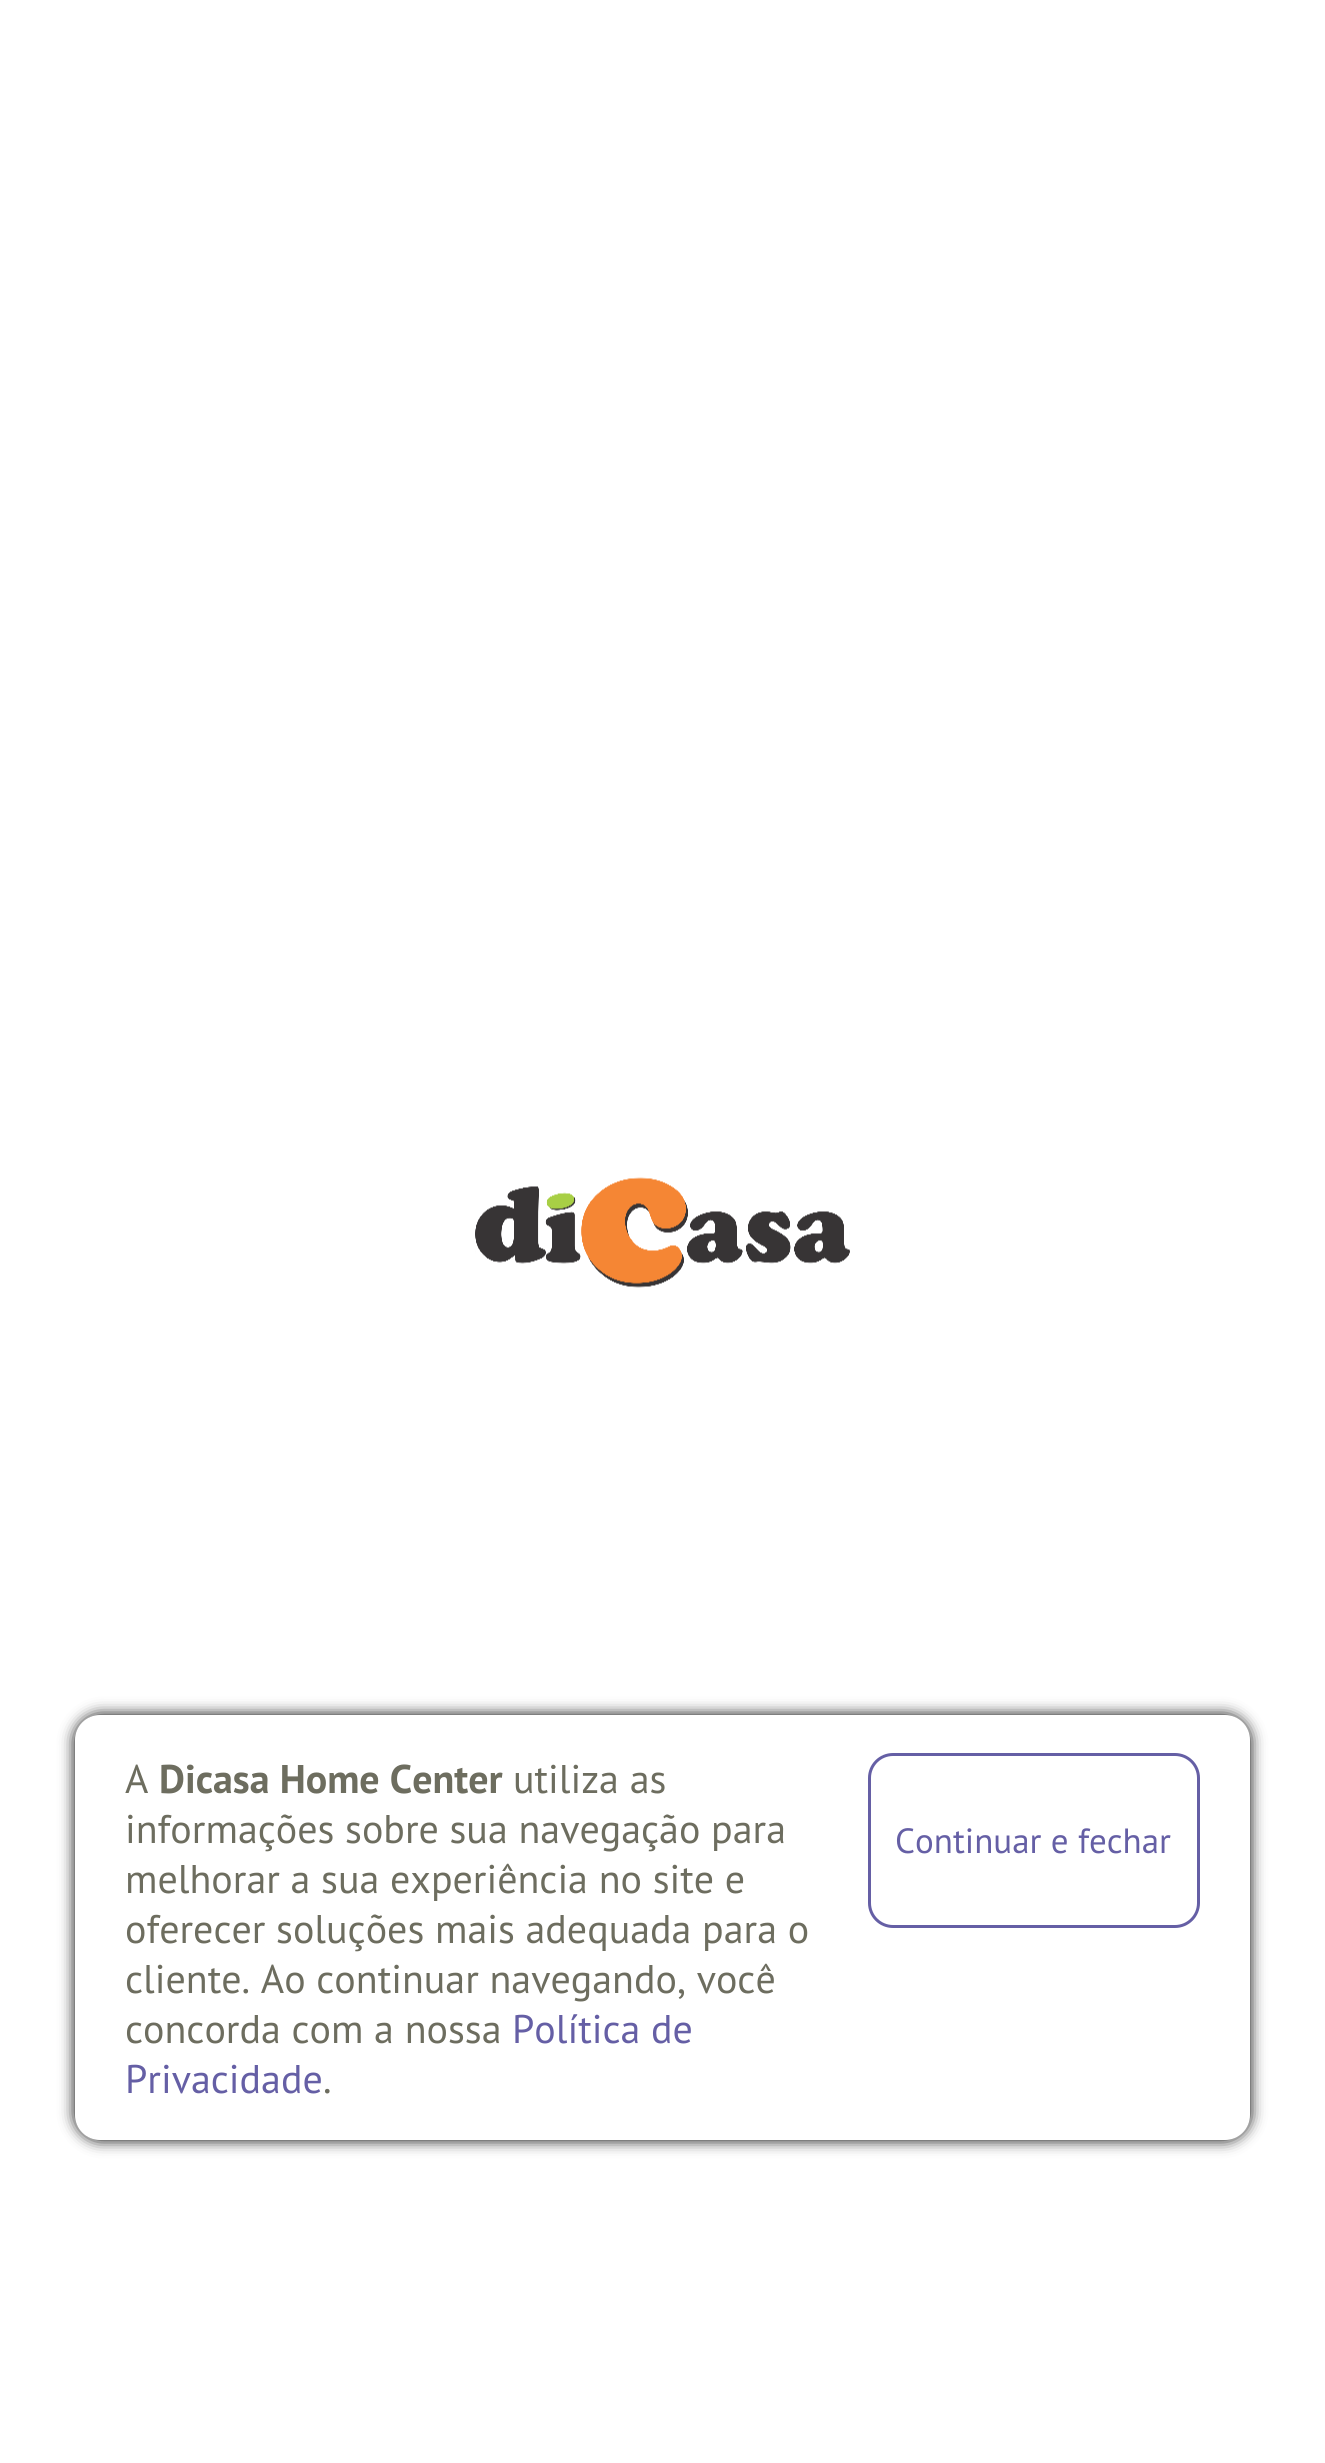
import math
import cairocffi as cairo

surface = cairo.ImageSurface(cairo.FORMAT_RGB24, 1325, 2463)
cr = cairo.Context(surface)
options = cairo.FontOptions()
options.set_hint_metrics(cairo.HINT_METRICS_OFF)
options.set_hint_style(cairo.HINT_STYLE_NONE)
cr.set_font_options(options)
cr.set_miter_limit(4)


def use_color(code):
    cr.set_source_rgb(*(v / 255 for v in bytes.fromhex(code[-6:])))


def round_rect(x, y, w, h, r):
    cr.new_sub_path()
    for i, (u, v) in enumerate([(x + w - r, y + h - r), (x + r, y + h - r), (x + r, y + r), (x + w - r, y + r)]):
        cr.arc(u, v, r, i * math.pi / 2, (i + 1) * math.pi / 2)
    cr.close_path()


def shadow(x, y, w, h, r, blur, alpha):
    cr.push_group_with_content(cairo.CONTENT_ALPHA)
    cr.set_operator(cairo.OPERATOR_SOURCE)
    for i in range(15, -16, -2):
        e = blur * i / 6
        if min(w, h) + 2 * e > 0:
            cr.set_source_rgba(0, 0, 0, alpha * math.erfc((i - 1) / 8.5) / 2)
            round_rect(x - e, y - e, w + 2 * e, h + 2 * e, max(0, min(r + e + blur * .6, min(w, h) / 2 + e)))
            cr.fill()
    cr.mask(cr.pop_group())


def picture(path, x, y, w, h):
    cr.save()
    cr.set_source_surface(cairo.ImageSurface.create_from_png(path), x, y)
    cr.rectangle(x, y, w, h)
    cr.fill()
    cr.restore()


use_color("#ffffff")
cr.paint()
picture("img1.png", 475, 1177, 375, 111)
use_color("#000000")
shadow(75, 1715, 1175, 425, 25, 7.5, 1)
use_color("#ffffff")
round_rect(75, 1715, 1175, 425, 25)
cr.fill()
cr.select_font_face("PT Sans")
cr.set_font_size(40)
use_color("#6d6d5f")
cr.move_to(125, 1793)
cr.show_text("A")
cr.select_font_face("PT Sans", cairo.FONT_SLANT_NORMAL, cairo.FONT_WEIGHT_BOLD)
cr.move_to(159, 1793)
cr.show_text("Dicasa Home Center")
cr.select_font_face("PT Sans")
cr.move_to(513, 1793)
cr.show_text("utiliza as")
cr.move_to(125, 1843)
cr.show_text("informações sobre sua navegação para")
cr.move_to(125, 1893)
cr.show_text("melhorar a sua experiência no site e")
cr.move_to(125, 1943)
cr.show_text("oferecer soluções mais adequada para o")
cr.move_to(125, 1993)
cr.show_text("cliente. Ao continuar navegando, você")
cr.move_to(125, 2043)
cr.show_text("concorda com a nossa")
use_color("#655fa5")
cr.move_to(512, 2043)
cr.show_text("Política de")
cr.move_to(125, 2093)
cr.show_text("Privacidade")
use_color("#6d6d5f")
cr.move_to(323, 2093)
cr.show_text(".")
round_rect(869.5, 1754.5, 329, 172, 23.5)
use_color("#655fa5")
cr.set_line_width(3)
cr.stroke()
cr.set_font_size(35)
cr.move_to(895, 1853)
cr.show_text("Continuar e fechar")
surface.write_to_png("result.png")
